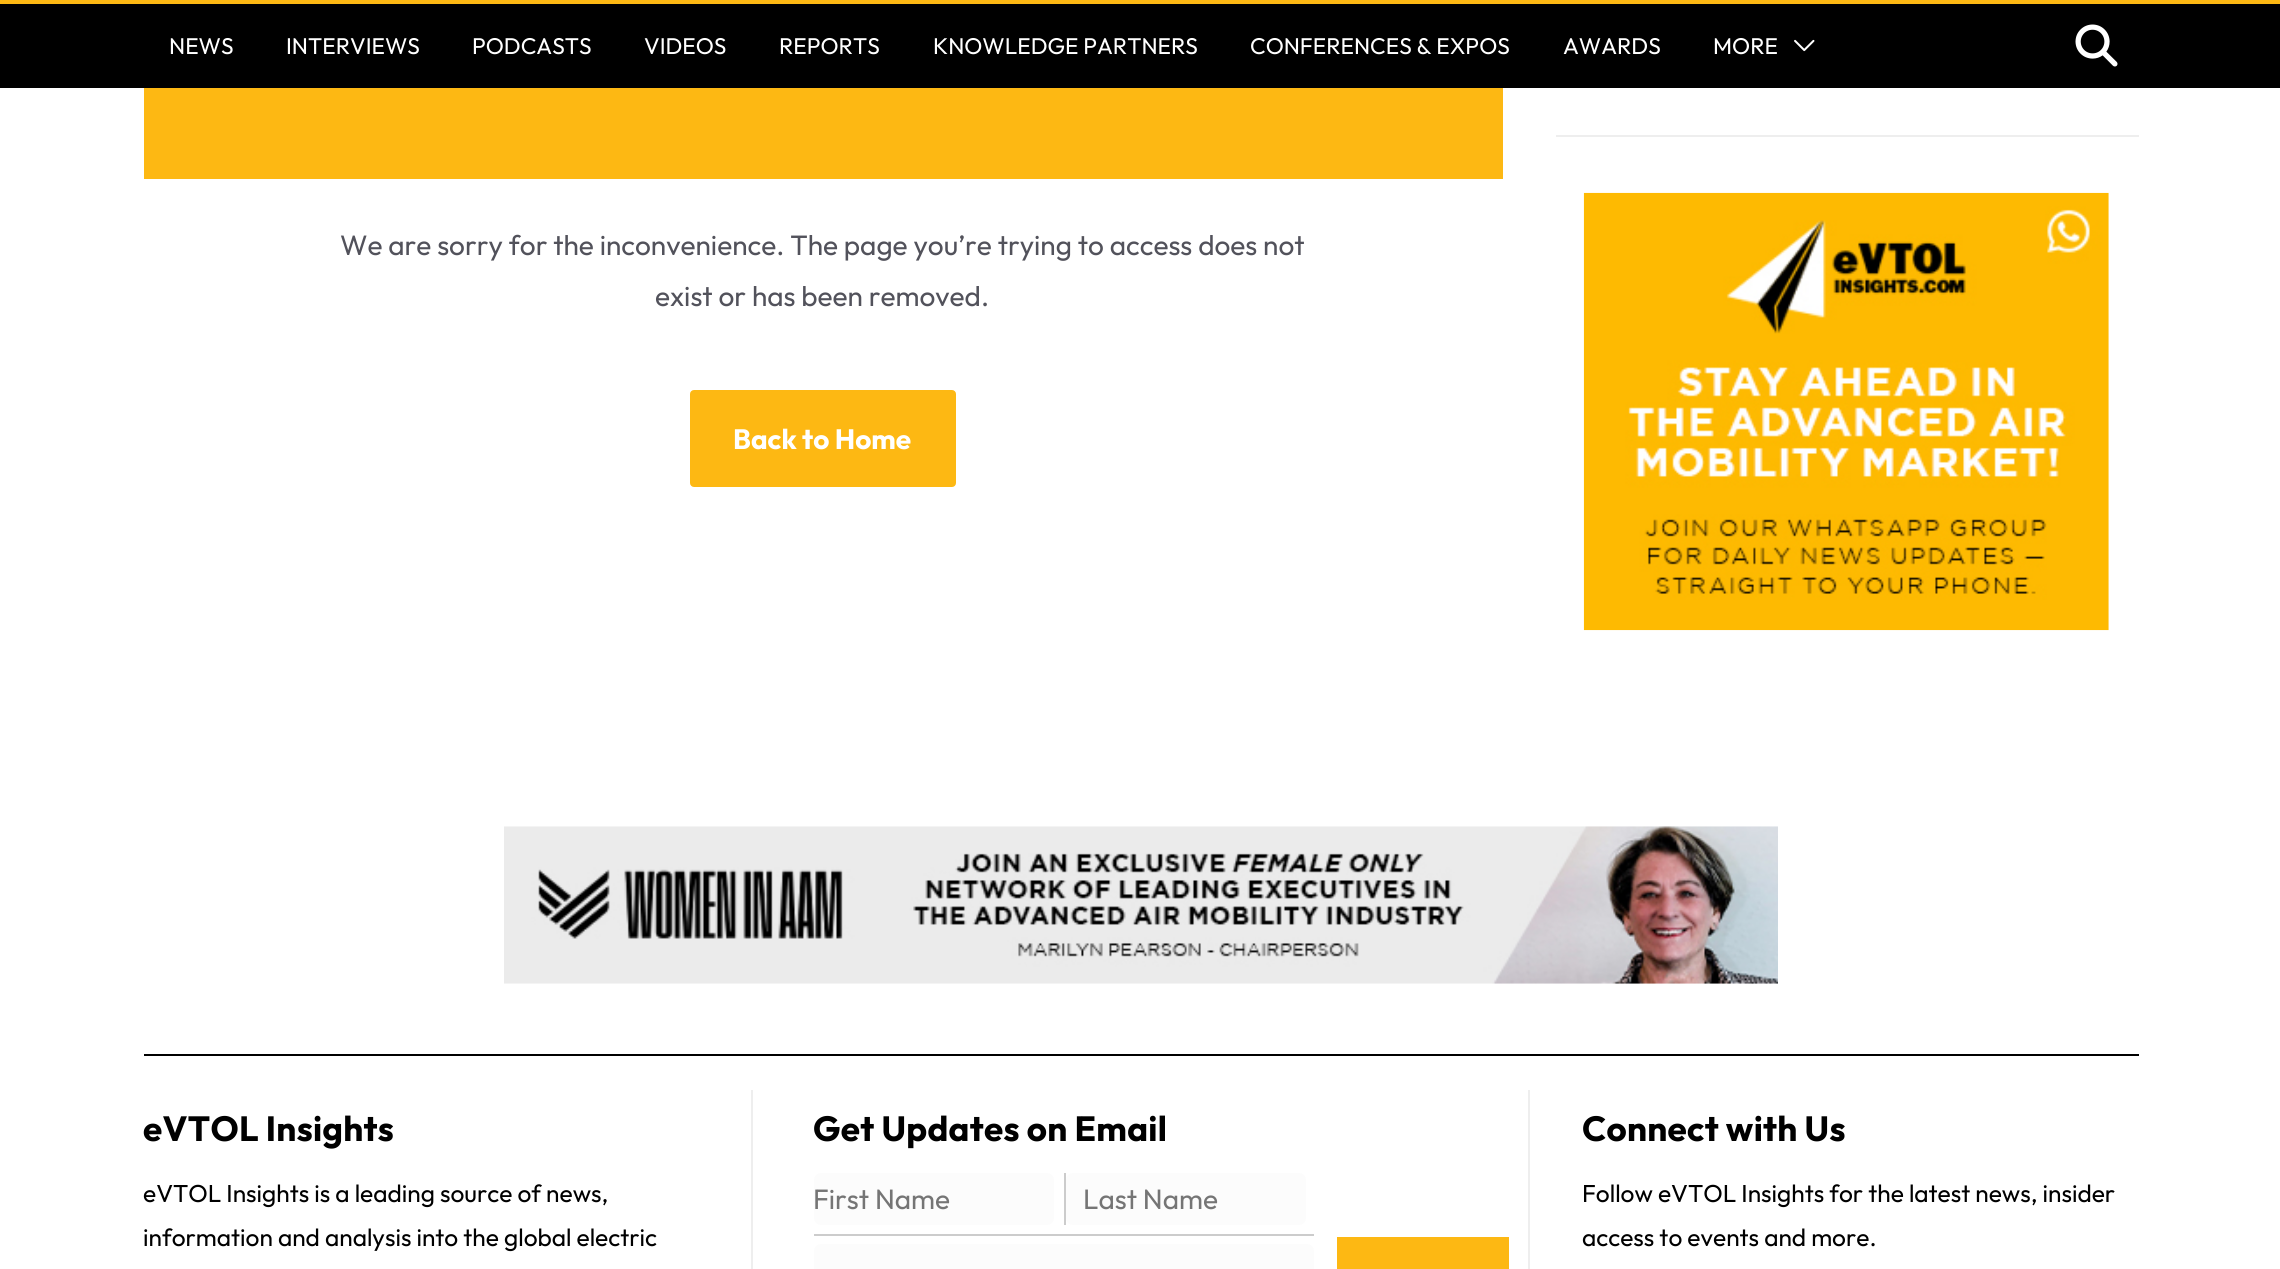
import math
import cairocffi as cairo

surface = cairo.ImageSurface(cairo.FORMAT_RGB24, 2280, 1269)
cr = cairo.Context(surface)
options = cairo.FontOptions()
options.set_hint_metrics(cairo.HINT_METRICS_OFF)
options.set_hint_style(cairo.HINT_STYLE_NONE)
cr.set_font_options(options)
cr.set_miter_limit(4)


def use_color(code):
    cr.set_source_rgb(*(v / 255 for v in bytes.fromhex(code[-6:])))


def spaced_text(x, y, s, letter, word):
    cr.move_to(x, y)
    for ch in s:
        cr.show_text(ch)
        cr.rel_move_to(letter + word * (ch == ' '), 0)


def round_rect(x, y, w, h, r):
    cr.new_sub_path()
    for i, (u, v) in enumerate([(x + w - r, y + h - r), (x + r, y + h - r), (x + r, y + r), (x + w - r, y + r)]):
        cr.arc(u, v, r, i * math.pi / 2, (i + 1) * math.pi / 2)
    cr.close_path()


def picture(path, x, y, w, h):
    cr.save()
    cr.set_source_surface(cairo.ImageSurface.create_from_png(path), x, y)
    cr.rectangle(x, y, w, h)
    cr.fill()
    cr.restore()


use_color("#ffffff")
cr.paint()
use_color("#000000")
cr.rectangle(0, 4, 2280, 84)
cr.fill()
use_color("#fdb813")
cr.rectangle(0, 0, 2280, 4)
cr.fill()
cr.select_font_face("Outfit")
cr.set_font_size(22.75)
use_color("#ffffff")
cr.move_to(169, 54)
cr.show_text("NEWS")
cr.move_to(286, 54)
cr.show_text("INTERVIEWS")
cr.move_to(472, 54)
cr.show_text("PODCASTS")
cr.move_to(644, 54)
cr.show_text("VIDEOS")
cr.move_to(779, 54)
cr.show_text("REPORTS")
cr.move_to(933, 54)
cr.show_text("KNOWLEDGE PARTNERS")
cr.move_to(1250, 54)
cr.show_text("CONFERENCES & EXPOS")
cr.move_to(1563, 54)
cr.show_text("AWARDS")
cr.move_to(1713, 54)
cr.show_text("MORE")
picture("img1.png", 1794, 39, 21, 13)
picture("img2.png", 2075, 24, 43, 43)
use_color("#fdb813")
cr.rectangle(144, 88, 1359, 91)
cr.fill()
cr.set_font_size(28)
use_color("#52525b")
cr.move_to(340, 255)
cr.show_text("We are sorry for the inconvenience. The page you’re trying to access does not")
cr.move_to(655, 306)
cr.show_text("exist or has been removed.")
use_color("#fdb813")
round_rect(691, 391, 264, 95, 3)
cr.fill_preserve()
cr.stroke()
cr.select_font_face("Outfit", cairo.FONT_SLANT_NORMAL, cairo.FONT_WEIGHT_BOLD)
use_color("#ffffff")
cr.move_to(733, 449)
cr.show_text("Back to Home")
use_color("#eeeeee")
cr.rectangle(1556, 135, 583, 2)
cr.fill()
picture("img3.png", 1583, 192, 526, 439)
picture("img4.png", 504, 826, 1274, 158)
use_color("#000000")
cr.rectangle(144, 1054, 1995, 2)
cr.fill()
cr.set_font_size(35)
spaced_text(143, 1141, "eVTOL Insights", 0.3, 0)
cr.select_font_face("Outfit")
cr.set_font_size(24.5)
cr.move_to(143, 1202)
cr.show_text("eVTOL Insights is a leading source of news,")
cr.move_to(143, 1246)
cr.show_text("information and analysis into the global electric")
use_color("#eeeeee")
cr.rectangle(1528, 1090, 2, 179)
cr.fill()
cr.rectangle(751, 1090, 2, 179)
cr.fill()
cr.select_font_face("Outfit", cairo.FONT_SLANT_NORMAL, cairo.FONT_WEIGHT_BOLD)
cr.set_font_size(35)
use_color("#000000")
spaced_text(813, 1141, "Get Updates on Email", 0.3, 0)
use_color("#fcfcfc")
round_rect(814, 1173, 240, 52, 7)
cr.fill()
cr.select_font_face("Outfit")
cr.set_font_size(28)
use_color("#757575")
cr.move_to(813, 1209)
cr.show_text("First Name")
use_color("#cccccc")
cr.rectangle(1064, 1173, 2, 52)
cr.fill()
use_color("#fcfcfc")
round_rect(1066, 1173, 240, 52, 7)
cr.fill()
use_color("#757575")
cr.move_to(1083, 1209)
cr.show_text("Last Name")
use_color("#cccccc")
cr.rectangle(814, 1234, 500, 2)
cr.fill()
use_color("#fcfcfc")
round_rect(814, 1244, 500, 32, 7)
cr.fill()
use_color("#fdb813")
cr.rectangle(1337, 1237, 172, 32)
cr.fill()
cr.select_font_face("Outfit", cairo.FONT_SLANT_NORMAL, cairo.FONT_WEIGHT_BOLD)
cr.set_font_size(35)
use_color("#000000")
spaced_text(1582, 1141, "Connect with Us", 0.3, 0)
cr.select_font_face("Outfit")
cr.set_font_size(24.5)
cr.move_to(1582, 1202)
cr.show_text("Follow eVTOL Insights for the latest news, insider")
cr.move_to(1582, 1246)
cr.show_text("access to events and more.")
surface.write_to_png("result.png")
